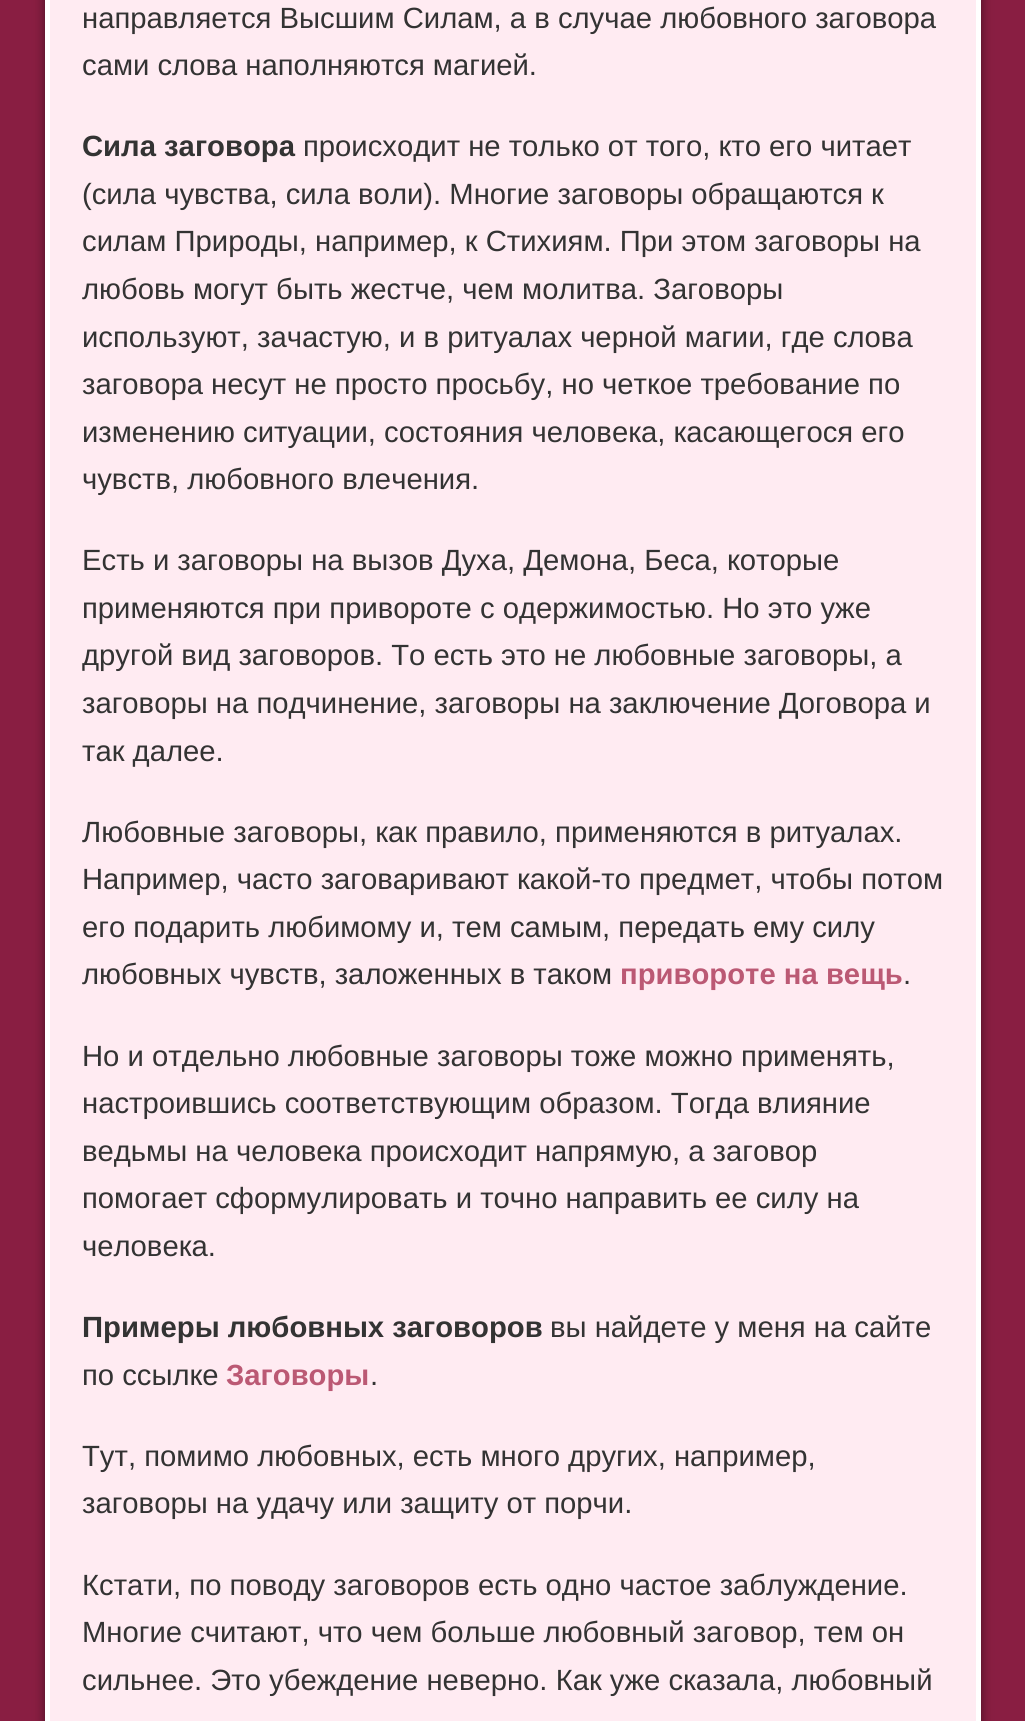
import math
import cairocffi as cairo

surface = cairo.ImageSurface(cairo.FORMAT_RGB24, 1025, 1721)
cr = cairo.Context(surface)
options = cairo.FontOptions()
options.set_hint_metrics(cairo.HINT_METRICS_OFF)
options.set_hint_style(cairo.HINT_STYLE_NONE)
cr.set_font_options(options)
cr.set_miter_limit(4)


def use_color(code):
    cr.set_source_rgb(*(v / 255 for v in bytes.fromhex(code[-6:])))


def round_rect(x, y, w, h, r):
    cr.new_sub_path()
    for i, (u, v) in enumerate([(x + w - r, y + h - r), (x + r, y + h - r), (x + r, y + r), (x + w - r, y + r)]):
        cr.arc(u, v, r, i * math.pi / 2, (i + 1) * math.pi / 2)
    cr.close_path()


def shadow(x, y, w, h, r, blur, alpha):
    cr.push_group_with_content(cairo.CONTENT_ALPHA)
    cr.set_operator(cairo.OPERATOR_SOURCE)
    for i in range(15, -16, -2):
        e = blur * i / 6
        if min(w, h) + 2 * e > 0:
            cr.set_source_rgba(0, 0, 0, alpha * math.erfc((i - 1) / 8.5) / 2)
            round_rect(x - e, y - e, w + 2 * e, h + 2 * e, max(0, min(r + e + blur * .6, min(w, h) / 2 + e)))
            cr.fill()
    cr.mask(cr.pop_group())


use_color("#891e42")
cr.paint()
use_color("#000000")
shadow(45, -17, 914, 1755, 0, 5.5, 0.5)
shadow(68, -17, 913, 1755, 0, 5.5, 0.5)
use_color("#ffebf2")
cr.rectangle(47.5, -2.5, 931, 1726)
cr.fill_preserve()
use_color("#ffffff")
cr.set_line_width(5)
cr.stroke()
cr.select_font_face("Liberation Sans")
cr.set_font_size(29.25)
use_color("#333333")
cr.move_to(82, 28)
cr.show_text("направляется Высшим Силам, а в случае любовного заговора")
cr.move_to(82, 75)
cr.show_text("сами слова наполняются магией.")
cr.select_font_face("Liberation Sans", cairo.FONT_SLANT_NORMAL, cairo.FONT_WEIGHT_BOLD)
cr.move_to(82, 156)
cr.show_text("Сила заговора")
cr.select_font_face("Liberation Sans")
cr.move_to(303, 156)
cr.show_text("происходит не только от того, кто его читает")
cr.move_to(82, 204)
cr.show_text("(сила чувства, сила воли). Многие заговоры обращаются к")
cr.move_to(82, 251)
cr.show_text("силам Природы, например, к Стихиям. При этом заговоры на")
cr.move_to(82, 299)
cr.show_text("любовь могут быть жестче, чем молитва. Заговоры")
cr.move_to(82, 347)
cr.show_text("используют, зачастую, и в ритуалах черной магии, где слова")
cr.move_to(82, 394)
cr.show_text("заговора несут не просто просьбу, но четкое требование по")
cr.move_to(82, 442)
cr.show_text("изменению ситуации, состояния человека, касающегося его")
cr.move_to(82, 489)
cr.show_text("чувств, любовного влечения.")
cr.move_to(82, 570)
cr.show_text("Есть и заговоры на вызов Духа, Демона, Беса, которые")
cr.move_to(82, 618)
cr.show_text("применяются при привороте с одержимостью. Но это уже")
cr.move_to(82, 665)
cr.show_text("другой вид заговоров. То есть это не любовные заговоры, а")
cr.move_to(82, 713)
cr.show_text("заговоры на подчинение, заговоры на заключение Договора и")
cr.move_to(82, 761)
cr.show_text("так далее.")
cr.move_to(82, 842)
cr.show_text("Любовные заговоры, как правило, применяются в ритуалах.")
cr.move_to(82, 889)
cr.show_text("Например, часто заговаривают какой-то предмет, чтобы потом")
cr.move_to(82, 937)
cr.show_text("его подарить любимому и, тем самым, передать ему силу")
cr.move_to(82, 984)
cr.show_text("любовных чувств, заложенных в таком")
cr.select_font_face("Liberation Sans", cairo.FONT_SLANT_NORMAL, cairo.FONT_WEIGHT_BOLD)
use_color("#bb5974")
cr.move_to(620, 984)
cr.show_text("привороте на вещь")
cr.select_font_face("Liberation Sans")
use_color("#333333")
cr.move_to(903, 984)
cr.show_text(".")
cr.move_to(82, 1066)
cr.show_text("Но и отдельно любовные заговоры тоже можно применять,")
cr.move_to(82, 1113)
cr.show_text("настроившись соответствующим образом. Тогда влияние")
cr.move_to(82, 1161)
cr.show_text("ведьмы на человека происходит напрямую, а заговор")
cr.move_to(82, 1208)
cr.show_text("помогает сформулировать и точно направить ее силу на")
cr.move_to(82, 1256)
cr.show_text("человека.")
cr.select_font_face("Liberation Sans", cairo.FONT_SLANT_NORMAL, cairo.FONT_WEIGHT_BOLD)
cr.move_to(82, 1337)
cr.show_text("Примеры любовных заговоров")
cr.select_font_face("Liberation Sans")
cr.move_to(550, 1337)
cr.show_text("вы найдете у меня на сайте")
cr.move_to(82, 1385)
cr.show_text("по ссылке")
cr.select_font_face("Liberation Sans", cairo.FONT_SLANT_NORMAL, cairo.FONT_WEIGHT_BOLD)
use_color("#bb5974")
cr.move_to(226, 1385)
cr.show_text("Заговоры")
cr.select_font_face("Liberation Sans")
use_color("#333333")
cr.move_to(370, 1385)
cr.show_text(".")
cr.move_to(82, 1466)
cr.show_text("Тут, помимо любовных, есть много других, например,")
cr.move_to(82, 1513)
cr.show_text("заговоры на удачу или защиту от порчи.")
cr.move_to(82, 1595)
cr.show_text("Кстати, по поводу заговоров есть одно частое заблуждение.")
cr.move_to(82, 1642)
cr.show_text("Многие считают, что чем больше любовный заговор, тем он")
cr.move_to(82, 1690)
cr.show_text("сильнее. Это убеждение неверно. Как уже сказала, любовный")
surface.write_to_png("result.png")
